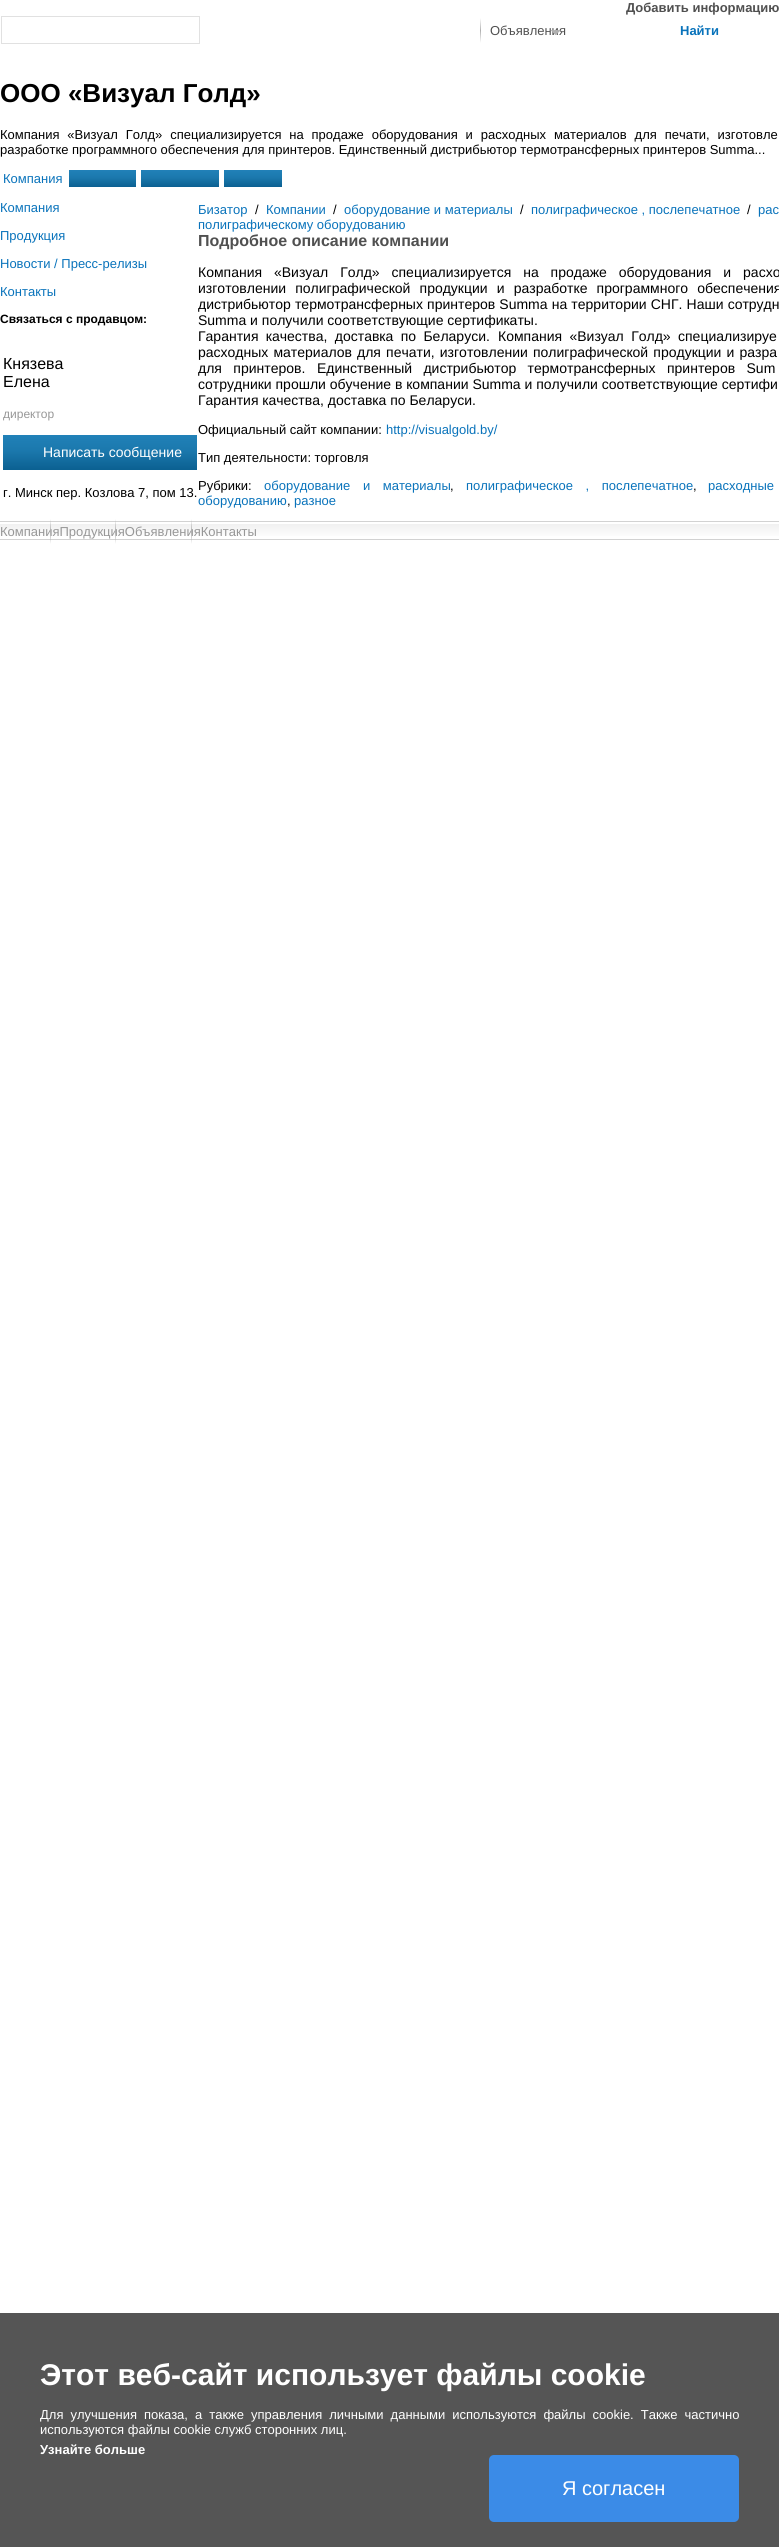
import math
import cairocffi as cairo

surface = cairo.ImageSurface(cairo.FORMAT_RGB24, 779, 2547)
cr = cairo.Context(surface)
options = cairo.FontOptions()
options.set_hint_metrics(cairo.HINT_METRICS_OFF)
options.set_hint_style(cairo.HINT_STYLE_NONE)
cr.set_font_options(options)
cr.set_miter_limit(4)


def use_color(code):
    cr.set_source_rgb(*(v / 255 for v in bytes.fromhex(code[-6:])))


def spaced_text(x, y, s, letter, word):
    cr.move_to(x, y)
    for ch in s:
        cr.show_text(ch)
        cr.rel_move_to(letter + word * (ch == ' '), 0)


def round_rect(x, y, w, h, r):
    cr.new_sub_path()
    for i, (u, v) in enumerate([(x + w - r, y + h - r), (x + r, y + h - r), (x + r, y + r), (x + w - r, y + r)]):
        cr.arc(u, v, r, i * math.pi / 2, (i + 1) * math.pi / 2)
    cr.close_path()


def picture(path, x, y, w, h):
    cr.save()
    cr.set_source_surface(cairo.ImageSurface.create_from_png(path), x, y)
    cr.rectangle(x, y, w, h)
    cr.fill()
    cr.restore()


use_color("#ffffff")
cr.paint()
cr.select_font_face("Liberation Sans", cairo.FONT_SLANT_NORMAL, cairo.FONT_WEIGHT_BOLD)
cr.set_font_size(13)
use_color("#505050")
cr.move_to(626, 12)
cr.show_text("Добавить информацию")
cr.rectangle(1.5, 16.5, 198, 27)
use_color("#e1e1e1")
cr.set_line_width(1)
cr.stroke()
gradient = cairo.LinearGradient(481, 18, 481, 43)
gradient.add_color_stop_rgba(0, 1, 1, 1, 1)
gradient.add_color_stop_rgba(0.5, 0.69, 0.69, 0.69, 1)
gradient.add_color_stop_rgba(1, 1, 1, 1, 1)
cr.set_source(gradient)
cr.rectangle(480, 18, 1, 25)
cr.fill()
cr.select_font_face("Liberation Sans")
use_color("#505050")
cr.move_to(490, 35)
cr.show_text("Объявления")
picture("img1.png", 550, 30, 11, 5)
cr.select_font_face("Liberation Sans", cairo.FONT_SLANT_NORMAL, cairo.FONT_WEIGHT_BOLD)
use_color("#0973bb")
cr.move_to(680, 35)
cr.show_text("Найти")
cr.set_font_size(26)
use_color("#000000")
cr.move_to(0, 102)
cr.show_text("ООО «Визуал Голд»")
cr.select_font_face("Liberation Sans")
cr.set_font_size(13)
spaced_text(0, 139, "Компания «Визуал Голд» специализируется на продаже оборудования и расходных материалов для печати, изготовле", 0, 4.25)
cr.move_to(0, 154)
cr.show_text("разработке программного обеспечения для принтеров. Единственный дистрибьютор термотрансферных принтеров Summa...")
use_color("#0973bb")
cr.move_to(3, 183)
cr.show_text("Компания")
gradient = cairo.LinearGradient(103, 170, 103, 187)
gradient.add_color_stop_rgba(0, 0.129, 0.506, 0.722, 1)
gradient.add_color_stop_rgba(0.45, 0.106, 0.471, 0.678, 1)
gradient.add_color_stop_rgba(1, 0.043, 0.376, 0.569, 1)
cr.set_source(gradient)
cr.rectangle(69, 170, 67, 17)
cr.fill()
gradient = cairo.LinearGradient(180, 170, 180, 187)
gradient.add_color_stop_rgba(0, 0.129, 0.506, 0.722, 1)
gradient.add_color_stop_rgba(0.45, 0.106, 0.471, 0.678, 1)
gradient.add_color_stop_rgba(1, 0.043, 0.376, 0.569, 1)
cr.set_source(gradient)
cr.rectangle(141, 170, 78, 17)
cr.fill()
gradient = cairo.LinearGradient(253, 170, 253, 187)
gradient.add_color_stop_rgba(0, 0.129, 0.506, 0.722, 1)
gradient.add_color_stop_rgba(0.45, 0.106, 0.471, 0.678, 1)
gradient.add_color_stop_rgba(1, 0.043, 0.376, 0.569, 1)
cr.set_source(gradient)
cr.rectangle(224, 170, 58, 17)
cr.fill()
use_color("#0973bb")
cr.move_to(0, 212)
cr.show_text("Компания")
cr.move_to(0, 240)
cr.show_text("Продукция")
cr.move_to(0, 268)
cr.show_text("Новости / Пресс-релизы")
cr.move_to(0, 296)
cr.show_text("Контакты")
cr.select_font_face("Liberation Sans", cairo.FONT_SLANT_NORMAL, cairo.FONT_WEIGHT_BOLD)
cr.set_font_size(12)
use_color("#000000")
cr.move_to(0, 323)
cr.show_text("Связаться с продавцом:")
cr.select_font_face("Liberation Sans")
cr.set_font_size(16)
cr.move_to(3, 369)
cr.show_text("Князева")
cr.move_to(3, 387)
cr.show_text("Елена")
cr.set_font_size(12)
use_color("#979797")
cr.move_to(3, 418)
cr.show_text("директор")
gradient = cairo.LinearGradient(100, 435, 100, 470)
gradient.add_color_stop_rgba(0, 0.129, 0.506, 0.722, 1)
gradient.add_color_stop_rgba(0.45, 0.106, 0.471, 0.678, 1)
gradient.add_color_stop_rgba(1, 0.043, 0.376, 0.569, 1)
cr.set_source(gradient)
cr.rectangle(3, 435, 194, 35)
cr.fill()
cr.set_font_size(14)
use_color("#ffffff")
cr.move_to(43, 457)
cr.show_text("Написать сообщение")
cr.set_font_size(13)
use_color("#000000")
cr.move_to(3, 497)
cr.show_text("г. Минск пер. Козлова 7, пом 13.")
use_color("#0973bb")
cr.move_to(198, 214)
cr.show_text("Бизатор")
use_color("#000000")
cr.move_to(255, 214)
cr.show_text("/")
use_color("#0973bb")
cr.move_to(266, 214)
cr.show_text("Компании")
use_color("#000000")
cr.move_to(333, 214)
cr.show_text("/")
use_color("#0973bb")
cr.move_to(344, 214)
cr.show_text("оборудование и материалы")
use_color("#000000")
cr.move_to(520, 214)
cr.show_text("/")
use_color("#0973bb")
cr.move_to(531, 214)
cr.show_text("полиграфическое , послепечатное")
use_color("#000000")
cr.move_to(747, 214)
cr.show_text("/")
use_color("#0973bb")
cr.move_to(758, 214)
cr.show_text("рас")
cr.move_to(198, 229)
cr.show_text("полиграфическому оборудованию")
cr.select_font_face("Liberation Sans", cairo.FONT_SLANT_NORMAL, cairo.FONT_WEIGHT_BOLD)
cr.set_font_size(16)
use_color("#505050")
cr.move_to(198, 246)
cr.show_text("Подробное описание компании")
cr.select_font_face("Liberation Sans")
cr.set_font_size(14)
use_color("#000000")
spaced_text(198, 277, "Компания «Визуал Голд» специализируется на продаже оборудования и расхо", 0, 8)
spaced_text(198, 293, "изготовлении полиграфической продукции и разработке программного обеспечения", 0, 5.25)
spaced_text(198, 309, "дистрибьютор термотрансферных принтеров Summa на территории СНГ. Наши сотрудн", 0, 0.25)
cr.move_to(198, 325)
cr.show_text("Summa и получили соответствующие сертификаты.")
spaced_text(198, 341, "Гарантия качества, доставка по Беларуси.", 0, 3.5)
spaced_text(498, 341, "Компания «Визуал Голд» специализируе", 0, 3.5)
spaced_text(198, 357, "расходных материалов для печати, изготовлении полиграфической продукции и разра", 0, 1.25)
spaced_text(198, 373, "для принтеров.", 0, 7.5)
spaced_text(317, 373, "Единственный дистрибьютор термотрансферных принтеров Sum", 0, 7.5)
cr.move_to(198, 389)
cr.show_text("сотрудники прошли обучение в компании Summa и получили соответствующие сертифи")
cr.move_to(198, 405)
cr.show_text("Гарантия качества, доставка по Беларуси.")
cr.set_font_size(13)
cr.move_to(198, 434)
cr.show_text("Официальный сайт компании:")
use_color("#0973bb")
cr.move_to(386, 434)
cr.show_text("http://visualgold.by/")
use_color("#000000")
cr.move_to(198, 462)
cr.show_text("Тип деятельности: торговля")
cr.move_to(198, 490)
cr.show_text("Рубрики:")
use_color("#0973bb")
spaced_text(264, 490, "оборудование и материалы", 0, 9)
use_color("#000000")
cr.move_to(450, 490)
cr.show_text(",")
use_color("#0973bb")
spaced_text(466, 490, "полиграфическое , послепечатное", 0, 9)
use_color("#000000")
cr.move_to(693, 490)
cr.show_text(",")
use_color("#0973bb")
spaced_text(708, 490, "расходные", 0, 9)
cr.move_to(198, 505)
cr.show_text("оборудованию")
use_color("#000000")
cr.move_to(287, 505)
cr.show_text(",")
use_color("#0973bb")
cr.move_to(294, 505)
cr.show_text("разное")
use_color("#d2d2d2")
cr.rectangle(0, 521, 779, 1)
cr.fill()
gradient = cairo.LinearGradient(390, 524, 390, 539)
gradient.add_color_stop_rgba(0, 0.945, 0.945, 0.945, 1)
gradient.add_color_stop_rgba(1, 1, 1, 1, 1)
cr.set_source(gradient)
cr.rectangle(0, 524, 779, 12)
cr.fill()
use_color("#979797")
cr.move_to(0, 536)
cr.show_text("КомпанияПродукцияОбъявленияКонтакты")
use_color("#d2d2d2")
cr.rectangle(0, 539, 779, 1)
cr.fill()
gradient = cairo.LinearGradient(51, 519, 51, 544)
gradient.add_color_stop_rgba(0, 0.69, 0.69, 0.69, 0)
gradient.add_color_stop_rgba(0.5, 0.69, 0.69, 0.69, 1)
gradient.add_color_stop_rgba(1, 0.69, 0.69, 0.69, 0)
cr.set_source(gradient)
cr.rectangle(50, 519, 1, 25)
cr.fill()
gradient = cairo.LinearGradient(116, 519, 116, 544)
gradient.add_color_stop_rgba(0, 0.69, 0.69, 0.69, 0)
gradient.add_color_stop_rgba(0.5, 0.69, 0.69, 0.69, 1)
gradient.add_color_stop_rgba(1, 0.69, 0.69, 0.69, 0)
cr.set_source(gradient)
cr.rectangle(115, 519, 1, 25)
cr.fill()
gradient = cairo.LinearGradient(192, 519, 192, 544)
gradient.add_color_stop_rgba(0, 0.69, 0.69, 0.69, 0)
gradient.add_color_stop_rgba(0.5, 0.69, 0.69, 0.69, 1)
gradient.add_color_stop_rgba(1, 0.69, 0.69, 0.69, 0)
cr.set_source(gradient)
cr.rectangle(191, 519, 1, 25)
cr.fill()
use_color("#555555")
cr.rectangle(0, 2313, 779, 234)
cr.fill()
cr.select_font_face("Liberation Sans", cairo.FONT_SLANT_NORMAL, cairo.FONT_WEIGHT_BOLD)
cr.set_font_size(30)
use_color("#ffffff")
cr.move_to(40, 2385)
cr.show_text("Этот веб-сайт использует файлы cookie")
cr.select_font_face("Liberation Sans")
cr.set_font_size(13)
spaced_text(40, 2419, "Для улучшения показа, а также управления личными данными используются файлы cookie. Также частично", 0, 3.4)
cr.move_to(40, 2434)
cr.show_text("используются файлы cookie служб сторонних лиц.")
cr.select_font_face("Liberation Sans", cairo.FONT_SLANT_NORMAL, cairo.FONT_WEIGHT_BOLD)
cr.move_to(40, 2454)
cr.show_text("Узнайте больше")
use_color("#3b8be7")
round_rect(489, 2455, 250, 67, 5)
cr.fill()
cr.select_font_face("Liberation Sans")
cr.set_font_size(20)
use_color("#ffffff")
cr.move_to(562, 2495)
cr.show_text("Я согласен")
surface.write_to_png("result.png")
